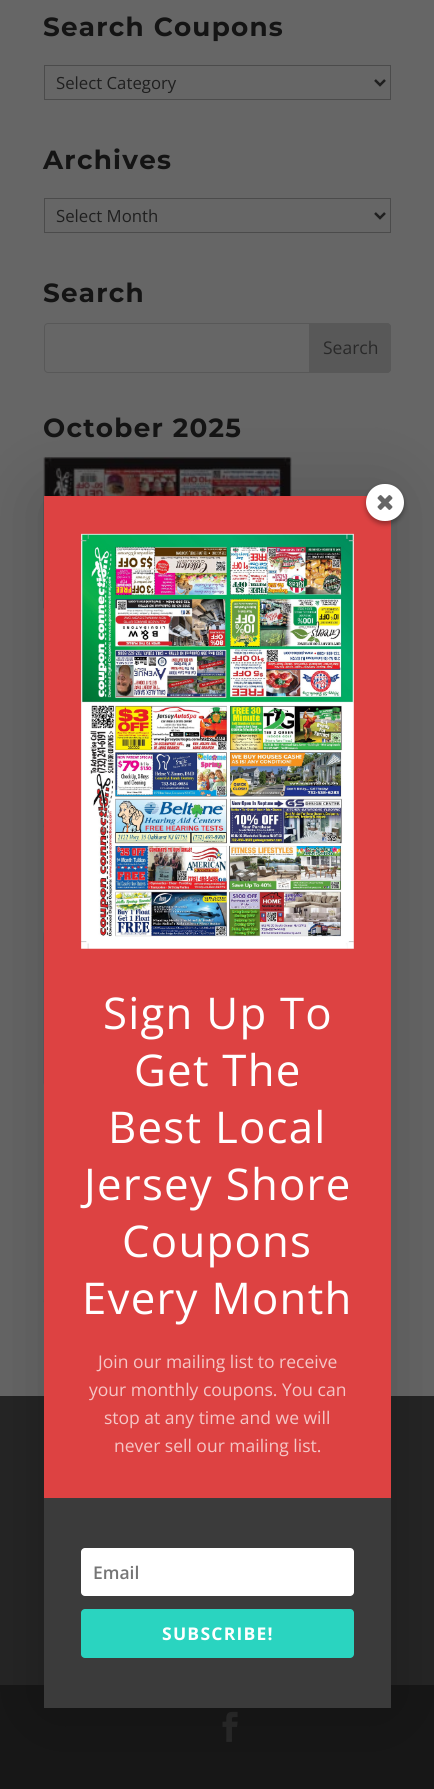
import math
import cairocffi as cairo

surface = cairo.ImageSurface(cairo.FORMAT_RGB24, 434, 1789)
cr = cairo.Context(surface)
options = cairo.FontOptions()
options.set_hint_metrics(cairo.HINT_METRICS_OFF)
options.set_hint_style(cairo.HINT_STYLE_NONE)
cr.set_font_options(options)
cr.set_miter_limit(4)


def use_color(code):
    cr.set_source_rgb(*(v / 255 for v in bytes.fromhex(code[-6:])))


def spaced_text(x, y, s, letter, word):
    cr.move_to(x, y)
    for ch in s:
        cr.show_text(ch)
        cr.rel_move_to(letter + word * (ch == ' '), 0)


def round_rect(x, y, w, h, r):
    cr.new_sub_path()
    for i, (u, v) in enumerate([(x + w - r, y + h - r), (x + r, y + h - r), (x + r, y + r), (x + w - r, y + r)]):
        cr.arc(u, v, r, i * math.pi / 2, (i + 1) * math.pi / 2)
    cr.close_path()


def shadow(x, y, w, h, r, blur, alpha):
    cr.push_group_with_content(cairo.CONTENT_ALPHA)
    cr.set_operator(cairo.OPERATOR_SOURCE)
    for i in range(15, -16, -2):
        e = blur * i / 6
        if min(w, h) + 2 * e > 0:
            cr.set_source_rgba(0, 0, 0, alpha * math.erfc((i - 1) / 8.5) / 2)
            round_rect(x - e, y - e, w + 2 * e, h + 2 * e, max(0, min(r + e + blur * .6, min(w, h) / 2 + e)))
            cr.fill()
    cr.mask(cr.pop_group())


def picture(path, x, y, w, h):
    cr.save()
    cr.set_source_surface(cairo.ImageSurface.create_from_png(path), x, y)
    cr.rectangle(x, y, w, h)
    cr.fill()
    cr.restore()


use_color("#666666")
cr.paint()
cr.select_font_face("Montserrat", cairo.FONT_SLANT_NORMAL, cairo.FONT_WEIGHT_BOLD)
cr.set_font_size(26.25)
use_color("#141414")
spaced_text(43, 36, "Search Coupons", 1.25, 0)
cr.rectangle(44.5, 65.5, 346, 34)
use_color("#4b4b4b")
cr.set_line_width(1)
cr.stroke()
cr.new_path()
cr.move_to(375, 80)
cr.line_to(380, 85)
cr.line_to(385, 80)
use_color("#1f1f1f")
cr.set_line_width(2.5)
cr.stroke()
cr.select_font_face("Open Sans")
cr.set_font_size(16.75)
cr.move_to(56, 89)
cr.show_text("Select Category")
cr.select_font_face("Montserrat", cairo.FONT_SLANT_NORMAL, cairo.FONT_WEIGHT_BOLD)
cr.set_font_size(26.25)
use_color("#141414")
spaced_text(43, 169, "Archives", 1.25, 0)
cr.rectangle(44.5, 198.5, 346, 34)
use_color("#4b4b4b")
cr.set_line_width(1)
cr.stroke()
cr.new_path()
cr.move_to(375, 213)
cr.line_to(380, 218)
cr.line_to(385, 213)
use_color("#1f1f1f")
cr.set_line_width(2.5)
cr.stroke()
cr.select_font_face("Open Sans")
cr.set_font_size(16.75)
cr.move_to(56, 222)
cr.show_text("Select Month")
cr.select_font_face("Montserrat", cairo.FONT_SLANT_NORMAL, cairo.FONT_WEIGHT_BOLD)
cr.set_font_size(26.25)
use_color("#141414")
spaced_text(43, 302, "Search", 1.25, 0)
round_rect(44.5, 323.5, 346, 49, 3.5)
use_color("#585858")
cr.set_line_width(1)
cr.stroke()
cr.new_path()
cr.move_to(309, 323)
cr.line_to(387, 323)
cr.curve_to(389, 323, 391, 325, 391, 327)
cr.line_to(391, 369)
cr.curve_to(391, 371, 389, 373, 387, 373)
cr.line_to(309, 373)
cr.close_path()
cr.fill()
cr.select_font_face("Open Sans")
cr.set_font_size(17.5)
use_color("#292929")
cr.move_to(323, 354)
cr.show_text("Search")
cr.select_font_face("Montserrat", cairo.FONT_SLANT_NORMAL, cairo.FONT_WEIGHT_BOLD)
cr.set_font_size(26.25)
use_color("#141414")
spaced_text(43, 437, "October 2025", 1.25, 0)
picture("img1.png", 43, 457, 249, 375)
picture("img2.png", 43, 932, 1, 375)
use_color("#252525")
cr.rectangle(0, 1396, 434, 289)
cr.fill()
use_color("#171717")
cr.rectangle(0, 1685, 434, 104)
cr.fill()
picture("img3.png", 222, 1711, 16, 31)
use_color("#000000")
shadow(44, 496, 347, 1212, 0, 37.5, 0.2)
use_color("#dd4242")
cr.rectangle(44, 496, 347, 1002)
cr.fill()
use_color("#000000")
shadow(366, 486, 38, 38, 19, 2.5, 0.34)
use_color("#ffffff")
round_rect(366, 484, 38, 37, 18.5)
cr.fill()
picture("img4.png", 377, 495, 16, 15)
picture("img5.png", 81, 533, 273, 416)
cr.select_font_face("Open Sans")
cr.set_font_size(43.75)
spaced_text(103, 1029, "Sign Up To", 1.25, 0)
spaced_text(134, 1086, "Get The", 1.25, 0)
spaced_text(108, 1143, "Best Local", 1.25, 0)
spaced_text(84, 1200, "Jersey Shore", 1.25, 0)
spaced_text(122, 1257, "Coupons", 1.25, 0)
spaced_text(82, 1314, "Every Month", 1.25, 0)
cr.set_font_size(17.5)
use_color("#f5c6c6")
cr.move_to(98, 1368)
cr.show_text("Join our mailing list to receive")
cr.move_to(89, 1396)
cr.show_text("your monthly coupons. You can")
cr.move_to(104, 1424)
cr.show_text("stop at any time and we will")
cr.move_to(114, 1452)
cr.show_text("never sell our mailing list.")
use_color("#3b3b3b")
cr.rectangle(44, 1498, 347, 210)
cr.fill()
use_color("#ffffff")
round_rect(81, 1548, 273, 48, 4)
cr.fill()
cr.select_font_face("Open Sans SemiBold")
use_color("#757575")
cr.move_to(93, 1579)
cr.show_text("Email")
use_color("#2ad4c0")
round_rect(81, 1609, 273, 49, 4)
cr.fill()
cr.select_font_face("Open Sans", cairo.FONT_SLANT_NORMAL, cairo.FONT_WEIGHT_BOLD)
use_color("#ffffff")
spaced_text(162, 1640, "SUBSCRIBE!", 1.25, 0)
surface.write_to_png("result.png")
